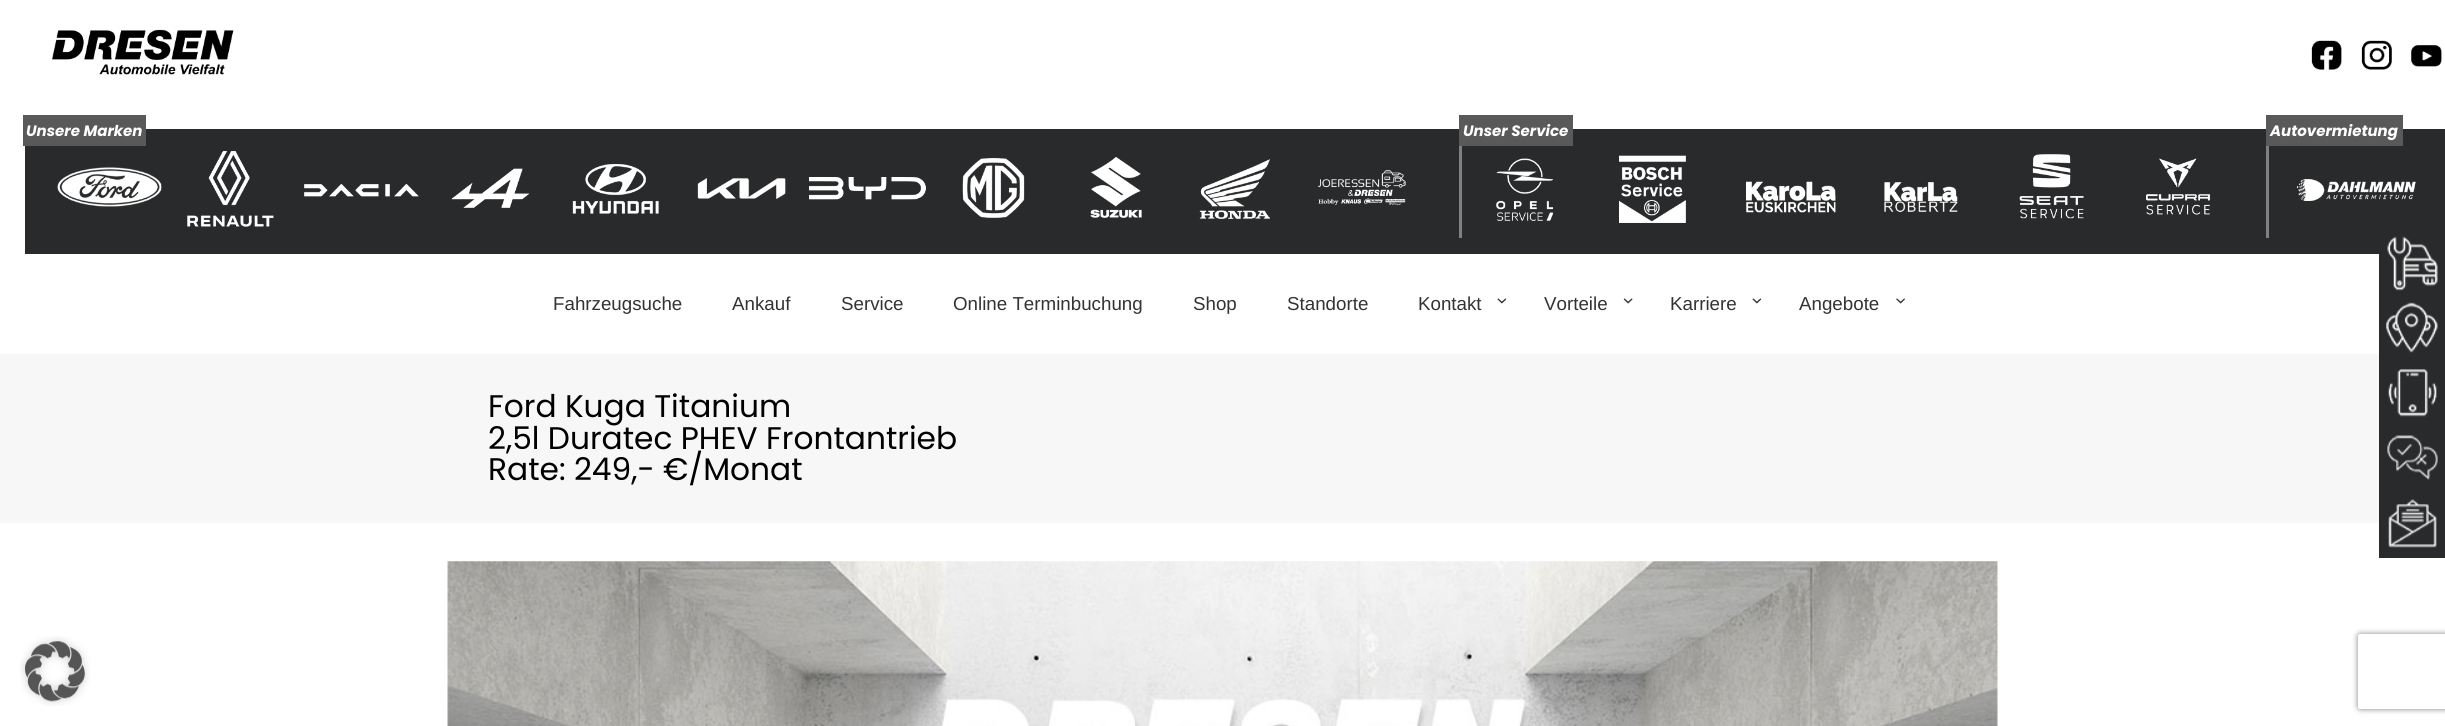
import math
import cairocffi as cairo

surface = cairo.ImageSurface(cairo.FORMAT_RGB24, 2445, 726)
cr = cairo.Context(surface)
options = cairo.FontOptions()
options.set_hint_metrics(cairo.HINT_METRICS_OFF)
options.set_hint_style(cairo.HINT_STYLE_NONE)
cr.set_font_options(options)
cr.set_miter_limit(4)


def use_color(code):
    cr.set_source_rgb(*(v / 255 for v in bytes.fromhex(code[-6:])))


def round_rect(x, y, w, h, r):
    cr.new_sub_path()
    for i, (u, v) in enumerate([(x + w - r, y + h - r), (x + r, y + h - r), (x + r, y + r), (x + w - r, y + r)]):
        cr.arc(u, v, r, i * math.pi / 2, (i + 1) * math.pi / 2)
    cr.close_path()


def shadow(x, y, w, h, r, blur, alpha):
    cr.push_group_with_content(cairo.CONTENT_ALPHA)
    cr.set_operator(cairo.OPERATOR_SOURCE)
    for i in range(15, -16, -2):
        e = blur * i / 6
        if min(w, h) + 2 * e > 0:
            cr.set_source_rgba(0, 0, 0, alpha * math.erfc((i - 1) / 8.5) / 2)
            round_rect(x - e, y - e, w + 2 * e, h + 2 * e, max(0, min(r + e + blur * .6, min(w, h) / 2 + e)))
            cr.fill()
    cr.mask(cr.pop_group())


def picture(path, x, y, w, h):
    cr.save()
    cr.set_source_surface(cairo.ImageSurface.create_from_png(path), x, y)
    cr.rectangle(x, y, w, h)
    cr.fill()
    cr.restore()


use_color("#ffffff")
cr.paint()
picture("img1.png", 52, 29, 182, 46)
picture("img2.png", 2311, 40, 31, 30)
picture("img3.png", 2361, 40, 31, 30)
picture("img4.png", 2411, 45, 31, 22)
use_color("#292a2b")
cr.rectangle(25, 129, 2420, 125)
cr.fill()
use_color("#595959")
cr.rectangle(23, 115, 123, 31)
cr.fill()
cr.select_font_face("Poppins", cairo.FONT_SLANT_ITALIC, cairo.FONT_WEIGHT_BOLD)
cr.set_font_size(15)
use_color("#ffffff")
cr.move_to(26, 136)
cr.show_text("Unsere Marken")
picture("img5.png", 57, 167, 105, 40)
picture("img6.png", 187, 151, 87, 76)
picture("img7.png", 304, 184, 115, 13)
picture("img8.png", 451, 168, 79, 40)
picture("img9.png", 572, 164, 87, 50)
picture("img10.png", 697, 178, 89, 21)
picture("img11.png", 809, 177, 117, 23)
picture("img12.png", 962, 158, 63, 60)
picture("img13.png", 1090, 157, 52, 61)
picture("img14.png", 1199, 159, 71, 60)
picture("img15.png", 1318, 170, 88, 35)
use_color("#808080")
cr.rectangle(1459, 144, 3, 94)
cr.fill()
use_color("#595959")
cr.rectangle(1459, 115, 114, 31)
cr.fill()
use_color("#ffffff")
cr.move_to(1463, 136)
cr.show_text("Unser Service")
picture("img16.png", 1496, 158, 57, 63)
picture("img17.png", 1619, 155, 67, 68)
picture("img18.png", 1746, 181, 90, 32)
picture("img19.png", 1884, 182, 74, 30)
picture("img20.png", 2019, 154, 65, 65)
picture("img21.png", 2146, 158, 65, 57)
use_color("#808080")
cr.rectangle(2266, 144, 3, 94)
cr.fill()
use_color("#595959")
cr.rectangle(2266, 115, 137, 31)
cr.fill()
use_color("#ffffff")
cr.move_to(2270, 136)
cr.show_text("Autovermietung")
picture("img22.png", 2296, 179, 120, 22)
cr.select_font_face("Liberation Sans")
cr.set_font_size(18.75)
use_color("#333333")
cr.move_to(553, 310)
cr.show_text("Fahrzeugsuche")
cr.move_to(732, 310)
cr.show_text("Ankauf")
cr.move_to(841, 310)
cr.show_text("Service")
cr.move_to(953, 310)
cr.show_text("Online Terminbuchung")
cr.move_to(1193, 310)
cr.show_text("Shop")
cr.move_to(1287, 310)
cr.show_text("Standorte")
cr.move_to(1418, 310)
cr.show_text("Kontakt")
picture("img23.png", 1497, 298, 10, 6)
cr.move_to(1544, 310)
cr.show_text("Vorteile")
picture("img24.png", 1623, 298, 10, 6)
cr.move_to(1670, 310)
cr.show_text("Karriere")
picture("img23.png", 1752, 298, 10, 6)
cr.move_to(1799, 310)
cr.show_text("Angebote")
picture("img25.png", 1896, 298, 9, 6)
use_color("#f7f7f7")
cr.rectangle(0, 354, 2379, 169)
cr.fill()
cr.select_font_face("Poppins")
cr.set_font_size(31.25)
use_color("#000000")
cr.move_to(488, 417)
cr.show_text("Ford Kuga Titanium")
cr.move_to(488, 449)
cr.show_text("2,5l Duratec PHEV Frontantrieb")
cr.move_to(488, 480)
cr.show_text("Rate: 249,- €/Monat")
picture("img26.png", 447, 561, 1551, 165)
use_color("#292a2b")
cr.rectangle(2379, 254, 66, 172)
cr.fill()
picture("img27.png", 2387, 236, 51, 55)
picture("img28.png", 2386, 302, 52, 51)
picture("img29.png", 2388, 369, 49, 48)
cr.rectangle(2379, 426, 66, 132)
cr.fill()
picture("img30.png", 2388, 499, 49, 49)
picture("img31.png", 2387, 435, 51, 46)
picture("img32.png", 20, 636, 70, 70)
cr.save()
cr.set_fill_rule(cairo.FILL_RULE_EVEN_ODD)
cr.new_path()
cr.move_to(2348, 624)
cr.line_to(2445, 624)
cr.line_to(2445, 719)
cr.line_to(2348, 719)
cr.close_path()
cr.move_to(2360.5, 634)
cr.line_to(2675.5, 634)
cr.curve_to(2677, 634, 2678, 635, 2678, 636.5)
cr.line_to(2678, 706.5)
cr.curve_to(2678, 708, 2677, 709, 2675.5, 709)
cr.line_to(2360.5, 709)
cr.curve_to(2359, 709, 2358, 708, 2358, 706.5)
cr.line_to(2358, 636.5)
cr.curve_to(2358, 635, 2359, 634, 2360.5, 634)
cr.close_path()
cr.clip()
use_color("#808080")
shadow(2358, 634, 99, 75, 2.5, 3, 1)
cr.restore()
surface.write_to_png("result.png")
